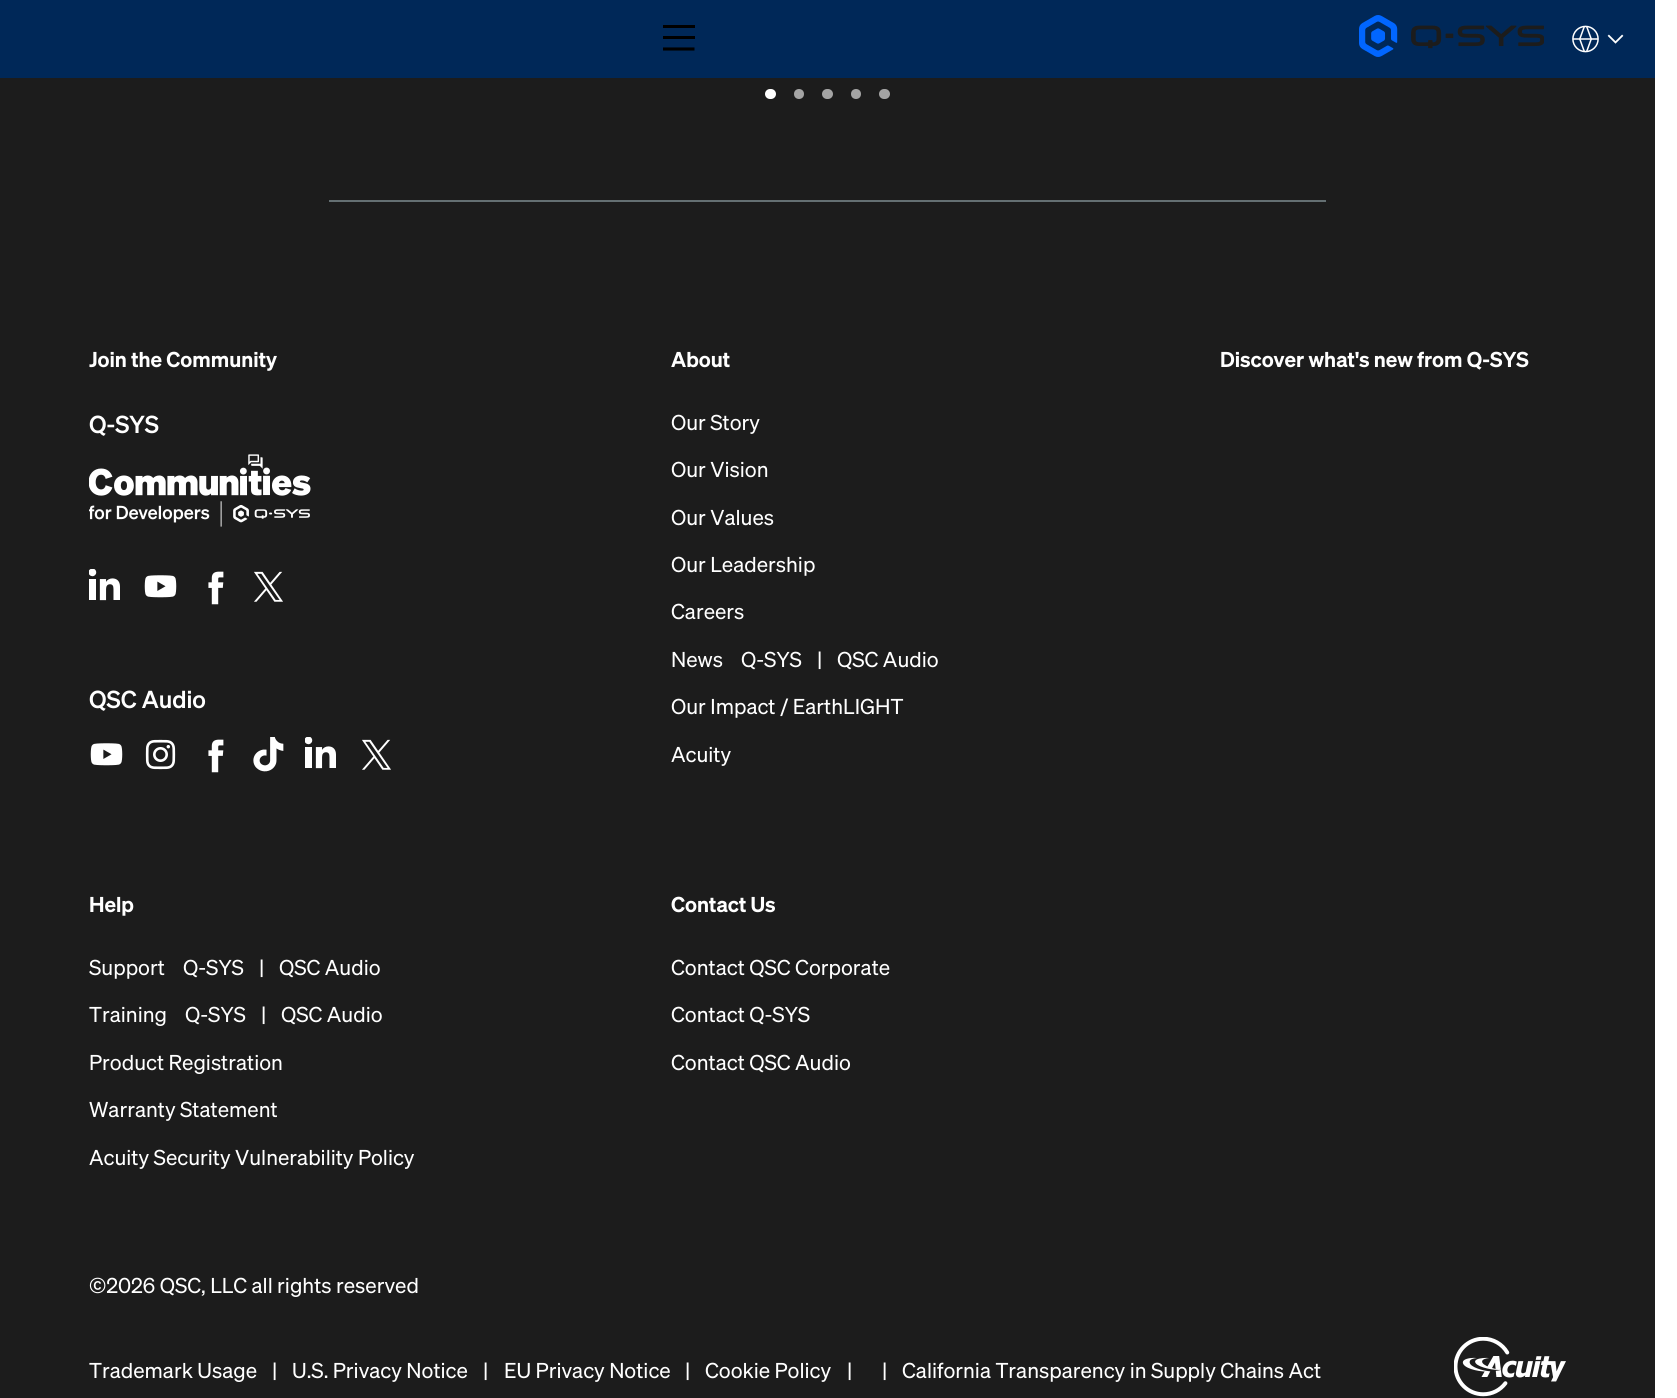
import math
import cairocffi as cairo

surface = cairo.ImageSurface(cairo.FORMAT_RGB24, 1677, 1398)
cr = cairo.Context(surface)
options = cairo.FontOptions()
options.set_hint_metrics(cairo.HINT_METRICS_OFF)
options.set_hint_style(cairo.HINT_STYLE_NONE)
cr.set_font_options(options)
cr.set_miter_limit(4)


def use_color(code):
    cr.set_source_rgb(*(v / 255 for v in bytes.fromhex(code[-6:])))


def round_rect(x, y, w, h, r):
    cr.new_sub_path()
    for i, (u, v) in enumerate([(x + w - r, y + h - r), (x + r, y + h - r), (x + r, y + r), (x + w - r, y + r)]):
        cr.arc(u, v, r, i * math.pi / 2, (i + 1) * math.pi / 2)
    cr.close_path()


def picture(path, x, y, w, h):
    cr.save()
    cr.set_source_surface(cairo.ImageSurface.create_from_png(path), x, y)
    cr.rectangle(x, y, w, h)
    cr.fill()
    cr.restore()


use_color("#ffffff")
cr.paint()
use_color("#002858")
cr.rectangle(0, 0, 1655, 78)
cr.fill()
use_color("#000000")
cr.rectangle(663, 25, 32, 3)
cr.fill()
cr.rectangle(663, 36, 32, 3)
cr.fill()
cr.new_path()
cr.move_to(694.5, 49)
cr.line_to(663, 49)
cr.set_line_width(3.1)
cr.stroke()
picture("img1.png", 1359, 15, 185, 42)
picture("img2.png", 1572, 25, 52, 28)
use_color("#1c1c1c")
cr.rectangle(0, 78, 1655, 1320)
cr.fill()
use_color("#ffffff")
round_rect(765, 89, 11, 10, 5)
cr.fill()
use_color("#a4a4a4")
cr.arc(799, 94, 5, 0, 2 * math.pi)
cr.fill()
round_rect(822, 89, 11, 10, 5)
cr.fill()
cr.arc(856, 94, 5, 0, 2 * math.pi)
cr.fill()
round_rect(879, 89, 11, 10, 5)
cr.fill()
use_color("#646f72")
cr.rectangle(329, 200, 997, 2)
cr.fill()
cr.select_font_face("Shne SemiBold")
cr.set_font_size(21)
use_color("#ffffff")
cr.move_to(89, 367)
cr.show_text("Join the Community")
cr.select_font_face("Shne Medium")
cr.set_font_size(24)
cr.move_to(89, 433)
cr.show_text("Q-SYS")
picture("img3.png", 89, 454, 222, 73)
picture("img4.png", 89, 569, 31, 32)
picture("img5.png", 144, 575, 33, 23)
picture("img6.png", 208, 571, 16, 34)
picture("img7.png", 254, 571, 29, 31)
cr.move_to(89, 708)
cr.show_text("QSC Audio")
picture("img5.png", 90, 743, 33, 23)
picture("img8.png", 145, 739, 31, 31)
picture("img6.png", 208, 739, 16, 34)
picture("img9.png", 253, 737, 31, 35)
picture("img4.png", 305, 737, 31, 32)
picture("img7.png", 362, 739, 29, 31)
cr.select_font_face("Shne SemiBold")
cr.set_font_size(21)
cr.move_to(671, 367)
cr.show_text("About")
cr.select_font_face("Shne")
cr.move_to(671, 430)
cr.show_text("Our Story")
cr.move_to(671, 477)
cr.show_text("Our Vision")
cr.move_to(671, 525)
cr.show_text("Our Values")
cr.move_to(671, 572)
cr.show_text("Our Leadership")
cr.move_to(671, 619)
cr.show_text("Careers")
cr.move_to(671, 667)
cr.show_text("News")
cr.move_to(741, 667)
cr.show_text("Q-SYS")
cr.move_to(817, 667)
cr.show_text("|")
cr.move_to(837, 667)
cr.show_text("QSC Audio")
cr.move_to(671, 714)
cr.show_text("Our Impact / EarthLIGHT")
cr.move_to(671, 762)
cr.show_text("Acuity")
cr.select_font_face("Shne SemiBold")
cr.move_to(89, 912)
cr.show_text("Help")
cr.select_font_face("Shne")
cr.move_to(89, 975)
cr.show_text("Support")
cr.move_to(183, 975)
cr.show_text("Q-SYS")
cr.move_to(259, 975)
cr.show_text("|")
cr.move_to(279, 975)
cr.show_text("QSC Audio")
cr.move_to(89, 1022)
cr.show_text("Training")
cr.move_to(185, 1022)
cr.show_text("Q-SYS")
cr.move_to(261, 1022)
cr.show_text("|")
cr.move_to(281, 1022)
cr.show_text("QSC Audio")
cr.move_to(89, 1070)
cr.show_text("Product Registration")
cr.move_to(89, 1117)
cr.show_text("Warranty Statement")
cr.move_to(89, 1165)
cr.show_text("Acuity Security Vulnerability Policy")
cr.select_font_face("Shne SemiBold")
cr.move_to(671, 912)
cr.show_text("Contact Us")
cr.select_font_face("Shne")
cr.move_to(671, 975)
cr.show_text("Contact QSC Corporate")
cr.move_to(671, 1022)
cr.show_text("Contact Q-SYS")
cr.move_to(671, 1070)
cr.show_text("Contact QSC Audio")
cr.select_font_face("Shne SemiBold")
cr.move_to(1220, 367)
cr.show_text("Discover what's new from Q-SYS")
cr.select_font_face("Shne")
cr.move_to(89, 1293)
cr.show_text("©2026 QSC, LLC all rights reserved")
cr.move_to(89, 1378)
cr.show_text("Trademark Usage")
cr.move_to(272, 1378)
cr.show_text("|")
cr.move_to(292, 1378)
cr.show_text("U.S. Privacy Notice")
cr.move_to(483, 1378)
cr.show_text("|")
cr.move_to(504, 1378)
cr.show_text("EU Privacy Notice")
cr.move_to(685, 1378)
cr.show_text("|")
cr.move_to(705, 1378)
cr.show_text("Cookie Policy")
cr.move_to(847, 1378)
cr.show_text("|")
cr.move_to(882, 1378)
cr.show_text("|")
cr.move_to(902, 1378)
cr.show_text("California Transparency in Supply Chains Act")
picture("img10.png", 1454, 1337, 112, 60)
surface.write_to_png("result.png")
